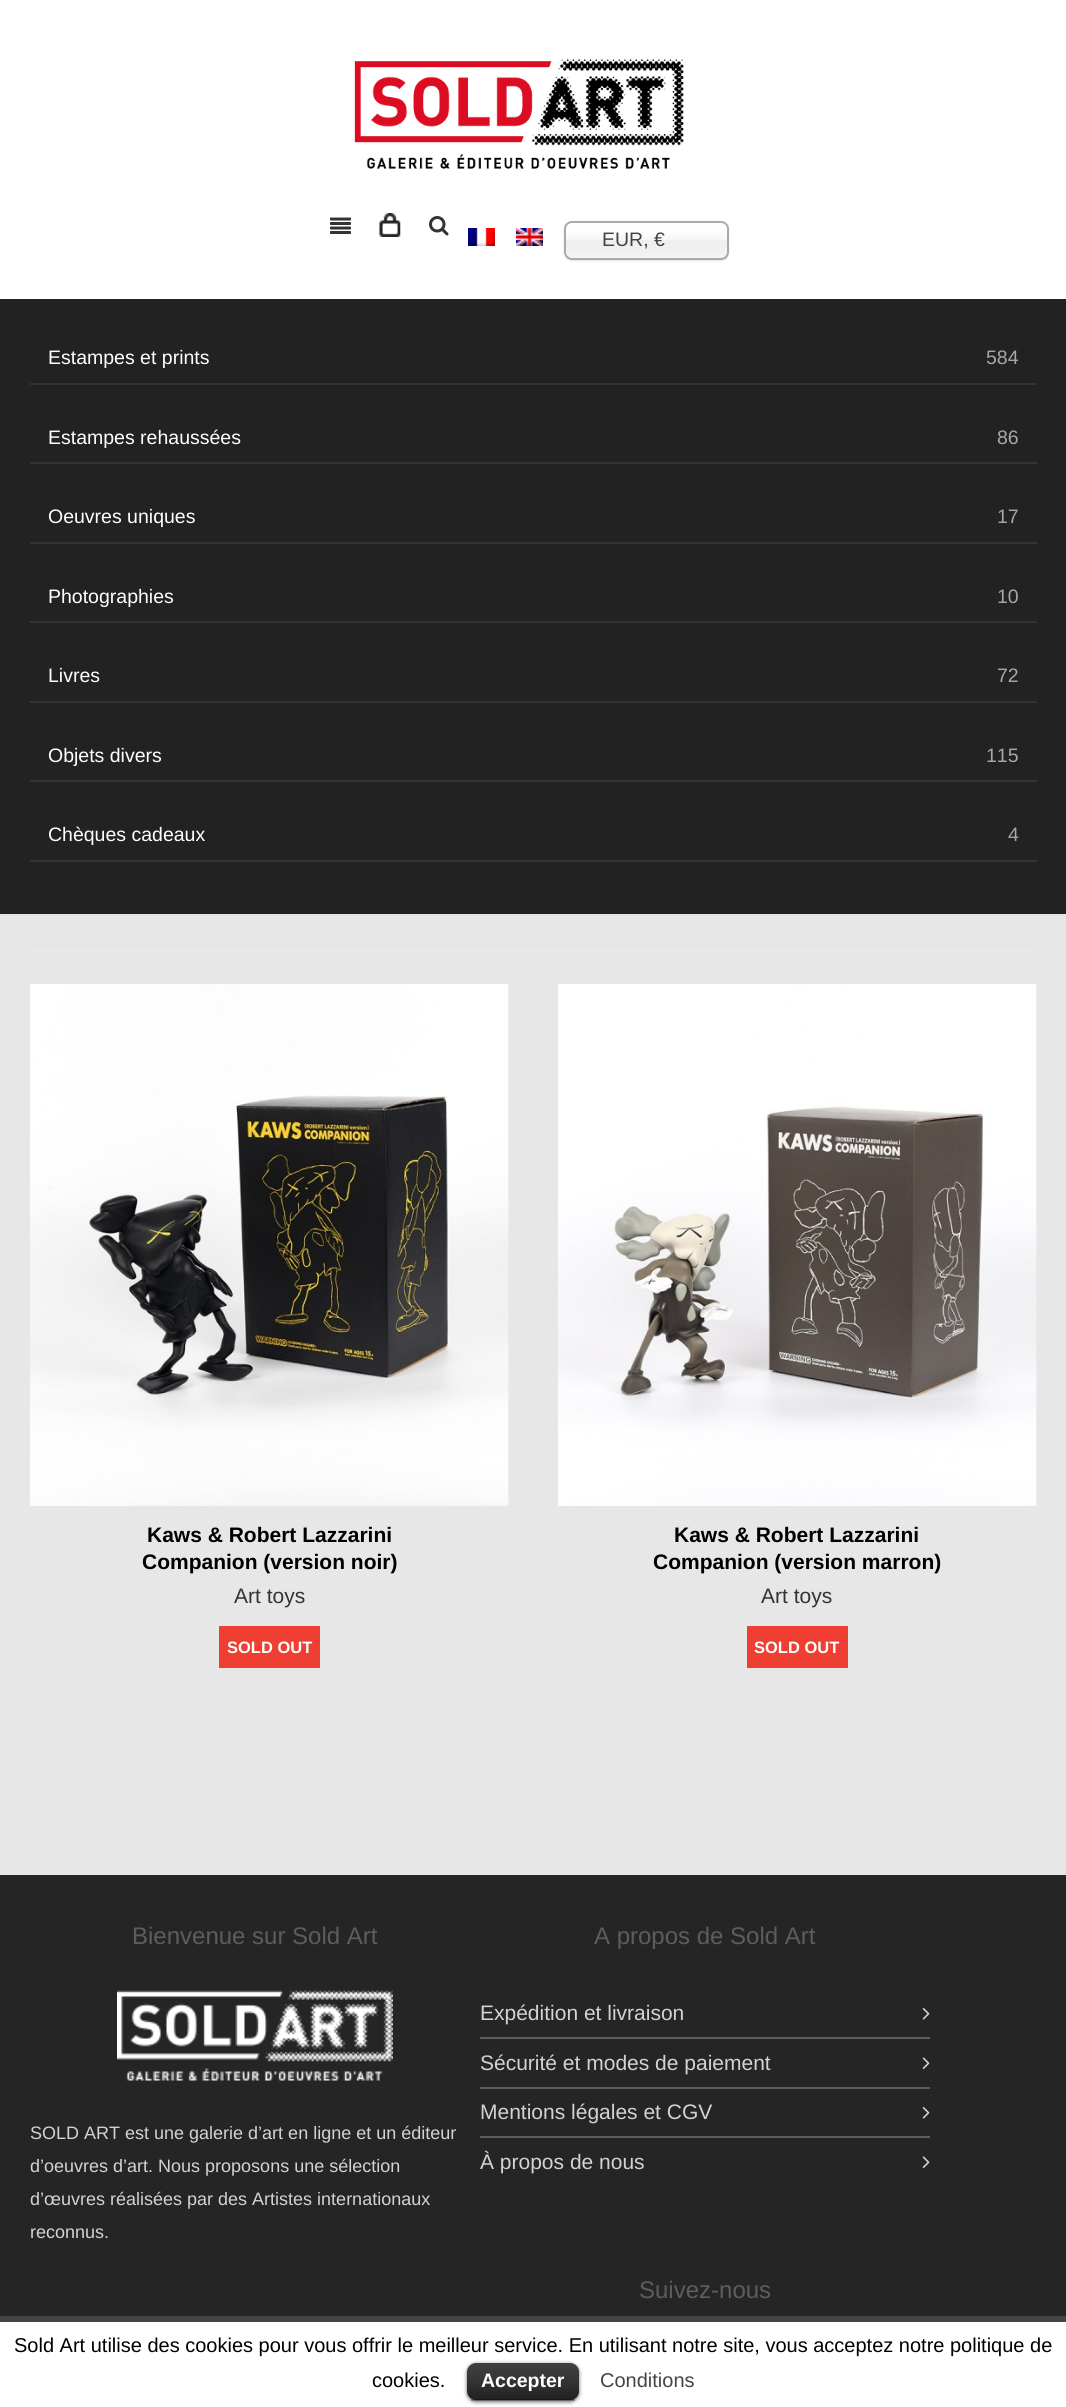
import math
import cairocffi as cairo

surface = cairo.ImageSurface(cairo.FORMAT_RGB24, 1066, 2407)
cr = cairo.Context(surface)
options = cairo.FontOptions()
options.set_hint_metrics(cairo.HINT_METRICS_OFF)
options.set_hint_style(cairo.HINT_STYLE_NONE)
cr.set_font_options(options)
cr.set_miter_limit(4)


def use_color(code):
    cr.set_source_rgb(*(v / 255 for v in bytes.fromhex(code[-6:])))


def round_rect(x, y, w, h, r):
    cr.new_sub_path()
    for i, (u, v) in enumerate([(x + w - r, y + h - r), (x + r, y + h - r), (x + r, y + r), (x + w - r, y + r)]):
        cr.arc(u, v, r, i * math.pi / 2, (i + 1) * math.pi / 2)
    cr.close_path()


def shadow(x, y, w, h, r, blur, alpha):
    cr.push_group_with_content(cairo.CONTENT_ALPHA)
    cr.set_operator(cairo.OPERATOR_SOURCE)
    for i in range(15, -16, -2):
        e = blur * i / 6
        if min(w, h) + 2 * e > 0:
            cr.set_source_rgba(0, 0, 0, alpha * math.erfc((i - 1) / 8.5) / 2)
            round_rect(x - e, y - e, w + 2 * e, h + 2 * e, max(0, min(r + e + blur * .6, min(w, h) / 2 + e)))
            cr.fill()
    cr.mask(cr.pop_group())


def picture(path, x, y, w, h):
    cr.save()
    cr.set_source_surface(cairo.ImageSurface.create_from_png(path), x, y)
    cr.rectangle(x, y, w, h)
    cr.fill()
    cr.restore()


use_color("#e7e7e7")
cr.paint()
use_color("#ffffff")
cr.rectangle(0, 0, 1066, 299)
cr.fill()
picture("img1.png", 354, 59, 330, 110)
picture("img2.png", 330, 217, 21, 17)
picture("img3.png", 379, 213, 22, 24)
picture("img4.png", 429, 216, 20, 20)
picture("img5.png", 468, 228, 27, 18)
picture("img6.png", 516, 228, 27, 18)
use_color("#000000")
shadow(564, 222, 165, 39, 8, 1, 0.1)
gradient = cairo.LinearGradient(647, 222, 647, 258)
gradient.add_color_stop_rgba(0.2, 1, 1, 1, 1)
gradient.add_color_stop_rgba(0.5, 0.965, 0.965, 0.965, 1)
gradient.add_color_stop_rgba(0.52, 0.933, 0.933, 0.933, 1)
gradient.add_color_stop_rgba(1, 0.957, 0.957, 0.957, 1)
cr.set_source(gradient)
round_rect(566, 222, 162, 36, 6)
cr.fill()
round_rect(565, 222, 163, 37, 7)
use_color("#aaaaaa")
cr.stroke()
cr.select_font_face("Liberation Sans")
cr.set_font_size(19.5)
use_color("#444444")
cr.move_to(602, 246)
cr.show_text("EUR, €")
use_color("#222222")
cr.rectangle(0, 299, 1066, 615)
cr.fill()
use_color("#e4e4e4")
cr.rectangle(0, 914, 1066, 2)
cr.fill()
use_color("#333333")
cr.rectangle(30, 383, 1007, 2)
cr.fill()
use_color("#ffffff")
cr.move_to(48, 364)
cr.show_text("Estampes et prints")
use_color("#a7a7a7")
cr.move_to(986, 364)
cr.show_text("584")
use_color("#333333")
cr.rectangle(30, 462, 1007, 2)
cr.fill()
use_color("#ffffff")
cr.move_to(48, 444)
cr.show_text("Estampes rehaussées")
use_color("#a7a7a7")
cr.move_to(997, 444)
cr.show_text("86")
use_color("#333333")
cr.rectangle(30, 542, 1007, 2)
cr.fill()
use_color("#ffffff")
cr.move_to(48, 523)
cr.show_text("Oeuvres uniques")
use_color("#a7a7a7")
cr.move_to(997, 523)
cr.show_text("17")
use_color("#333333")
cr.rectangle(30, 621, 1007, 2)
cr.fill()
use_color("#ffffff")
cr.move_to(48, 603)
cr.show_text("Photographies")
use_color("#a7a7a7")
cr.move_to(997, 603)
cr.show_text("10")
use_color("#333333")
cr.rectangle(30, 701, 1007, 2)
cr.fill()
use_color("#ffffff")
cr.move_to(48, 682)
cr.show_text("Livres")
use_color("#a7a7a7")
cr.move_to(997, 682)
cr.show_text("72")
use_color("#333333")
cr.rectangle(30, 780, 1007, 2)
cr.fill()
use_color("#ffffff")
cr.move_to(48, 762)
cr.show_text("Objets divers")
use_color("#a7a7a7")
cr.move_to(986, 762)
cr.show_text("115")
use_color("#333333")
cr.rectangle(30, 860, 1007, 2)
cr.fill()
use_color("#ffffff")
cr.move_to(48, 841)
cr.show_text("Chèques cadeaux")
use_color("#a7a7a7")
cr.move_to(1008, 841)
cr.show_text("4")
use_color("#e4e4e4")
cr.rectangle(30, 945, 1007, 2)
cr.fill()
picture("img7.png", 30, 984, 479, 522)
cr.select_font_face("Liberation Sans", cairo.FONT_SLANT_NORMAL, cairo.FONT_WEIGHT_BOLD)
cr.set_font_size(21)
use_color("#000000")
cr.move_to(147, 1542)
cr.show_text("Kaws & Robert Lazzarini")
cr.move_to(142, 1569)
cr.show_text("Companion (version noir)")
cr.select_font_face("Liberation Sans")
use_color("#333333")
cr.move_to(234, 1603)
cr.show_text("Art toys")
use_color("#ef3f32")
cr.rectangle(219, 1626, 101, 42)
cr.fill()
cr.select_font_face("Liberation Sans", cairo.FONT_SLANT_NORMAL, cairo.FONT_WEIGHT_BOLD)
cr.set_font_size(16.5)
use_color("#ffffff")
cr.move_to(227, 1653)
cr.show_text("SOLD OUT")
picture("img8.png", 558, 984, 479, 522)
cr.set_font_size(21)
use_color("#000000")
cr.move_to(674, 1542)
cr.show_text("Kaws & Robert Lazzarini")
cr.move_to(653, 1569)
cr.show_text("Companion (version marron)")
cr.select_font_face("Liberation Sans")
use_color("#333333")
cr.move_to(761, 1603)
cr.show_text("Art toys")
use_color("#ef3f32")
cr.rectangle(747, 1626, 101, 42)
cr.fill()
cr.select_font_face("Liberation Sans", cairo.FONT_SLANT_NORMAL, cairo.FONT_WEIGHT_BOLD)
cr.set_font_size(16.5)
use_color("#ffffff")
cr.move_to(754, 1653)
cr.show_text("SOLD OUT")
use_color("#252525")
cr.rectangle(0, 1875, 1066, 441)
cr.fill()
cr.select_font_face("Liberation Sans")
cr.set_font_size(24)
use_color("#5d5d5d")
cr.move_to(132, 1944)
cr.show_text("Bienvenue sur Sold Art")
picture("img9.png", 117, 1990, 276, 91)
cr.set_font_size(18)
use_color("#d3d3d3")
cr.move_to(30, 2139)
cr.show_text("SOLD ART est une galerie d’art en ligne et un éditeur")
cr.move_to(30, 2172)
cr.show_text("d’oeuvres d’art. Nous proposons une sélection")
cr.move_to(30, 2205)
cr.show_text("d’œuvres réalisées par des Artistes internationaux")
cr.move_to(30, 2238)
cr.show_text("reconnus.")
cr.set_font_size(24)
use_color("#5d5d5d")
cr.move_to(594, 1944)
cr.show_text("A propos de Sold Art")
cr.set_font_size(21)
use_color("#d3d3d3")
cr.move_to(480, 2020)
cr.show_text("Expédition et livraison")
picture("img10.png", 922, 2008, 8, 12)
use_color("#5d5d5d")
cr.rectangle(480, 2037, 450, 2)
cr.fill()
use_color("#d3d3d3")
cr.move_to(480, 2070)
cr.show_text("Sécurité et modes de paiement")
picture("img11.png", 922, 2057, 8, 12)
use_color("#5d5d5d")
cr.rectangle(480, 2087, 450, 2)
cr.fill()
use_color("#d3d3d3")
cr.move_to(480, 2119)
cr.show_text("Mentions légales et CGV")
picture("img10.png", 922, 2107, 8, 12)
use_color("#5d5d5d")
cr.rectangle(480, 2136, 450, 2)
cr.fill()
use_color("#d3d3d3")
cr.move_to(480, 2169)
cr.show_text("À propos de nous")
picture("img11.png", 922, 2156, 8, 12)
cr.set_font_size(24)
use_color("#5d5d5d")
cr.move_to(639, 2298)
cr.show_text("Suivez-nous")
use_color("#ffffff")
cr.rectangle(0, 2322, 1066, 85)
cr.fill()
use_color("#444444")
cr.rectangle(0, 2316, 1066, 6)
cr.fill()
cr.set_font_size(20)
use_color("#000000")
cr.move_to(14, 2352)
cr.show_text("Sold Art utilise des cookies pour vous offrir le meilleur service. En utilisant notre site, vous acceptez notre politique de")
cr.move_to(372, 2387)
cr.show_text("cookies.")
use_color("#000000")
shadow(467, 2364, 112, 38, 9, 2, 0.6)
use_color("#000000")
round_rect(467, 2363, 112, 37, 9)
cr.fill()
picture("img12.png", 467, 2363, 112, 37)
cr.set_source_rgba(0, 0, 0, 0.25)
cr.rectangle(471, 2399, 104, 2)
cr.fill()
cr.select_font_face("Liberation Sans", cairo.FONT_SLANT_NORMAL, cairo.FONT_WEIGHT_BOLD)
cr.set_font_size(19.5)
use_color("#ffffff")
cr.move_to(481, 2387)
cr.show_text("Accepter")
cr.select_font_face("Liberation Sans")
cr.set_font_size(20)
use_color("#444444")
cr.move_to(600, 2387)
cr.show_text("Conditions")
surface.write_to_png("result.png")
